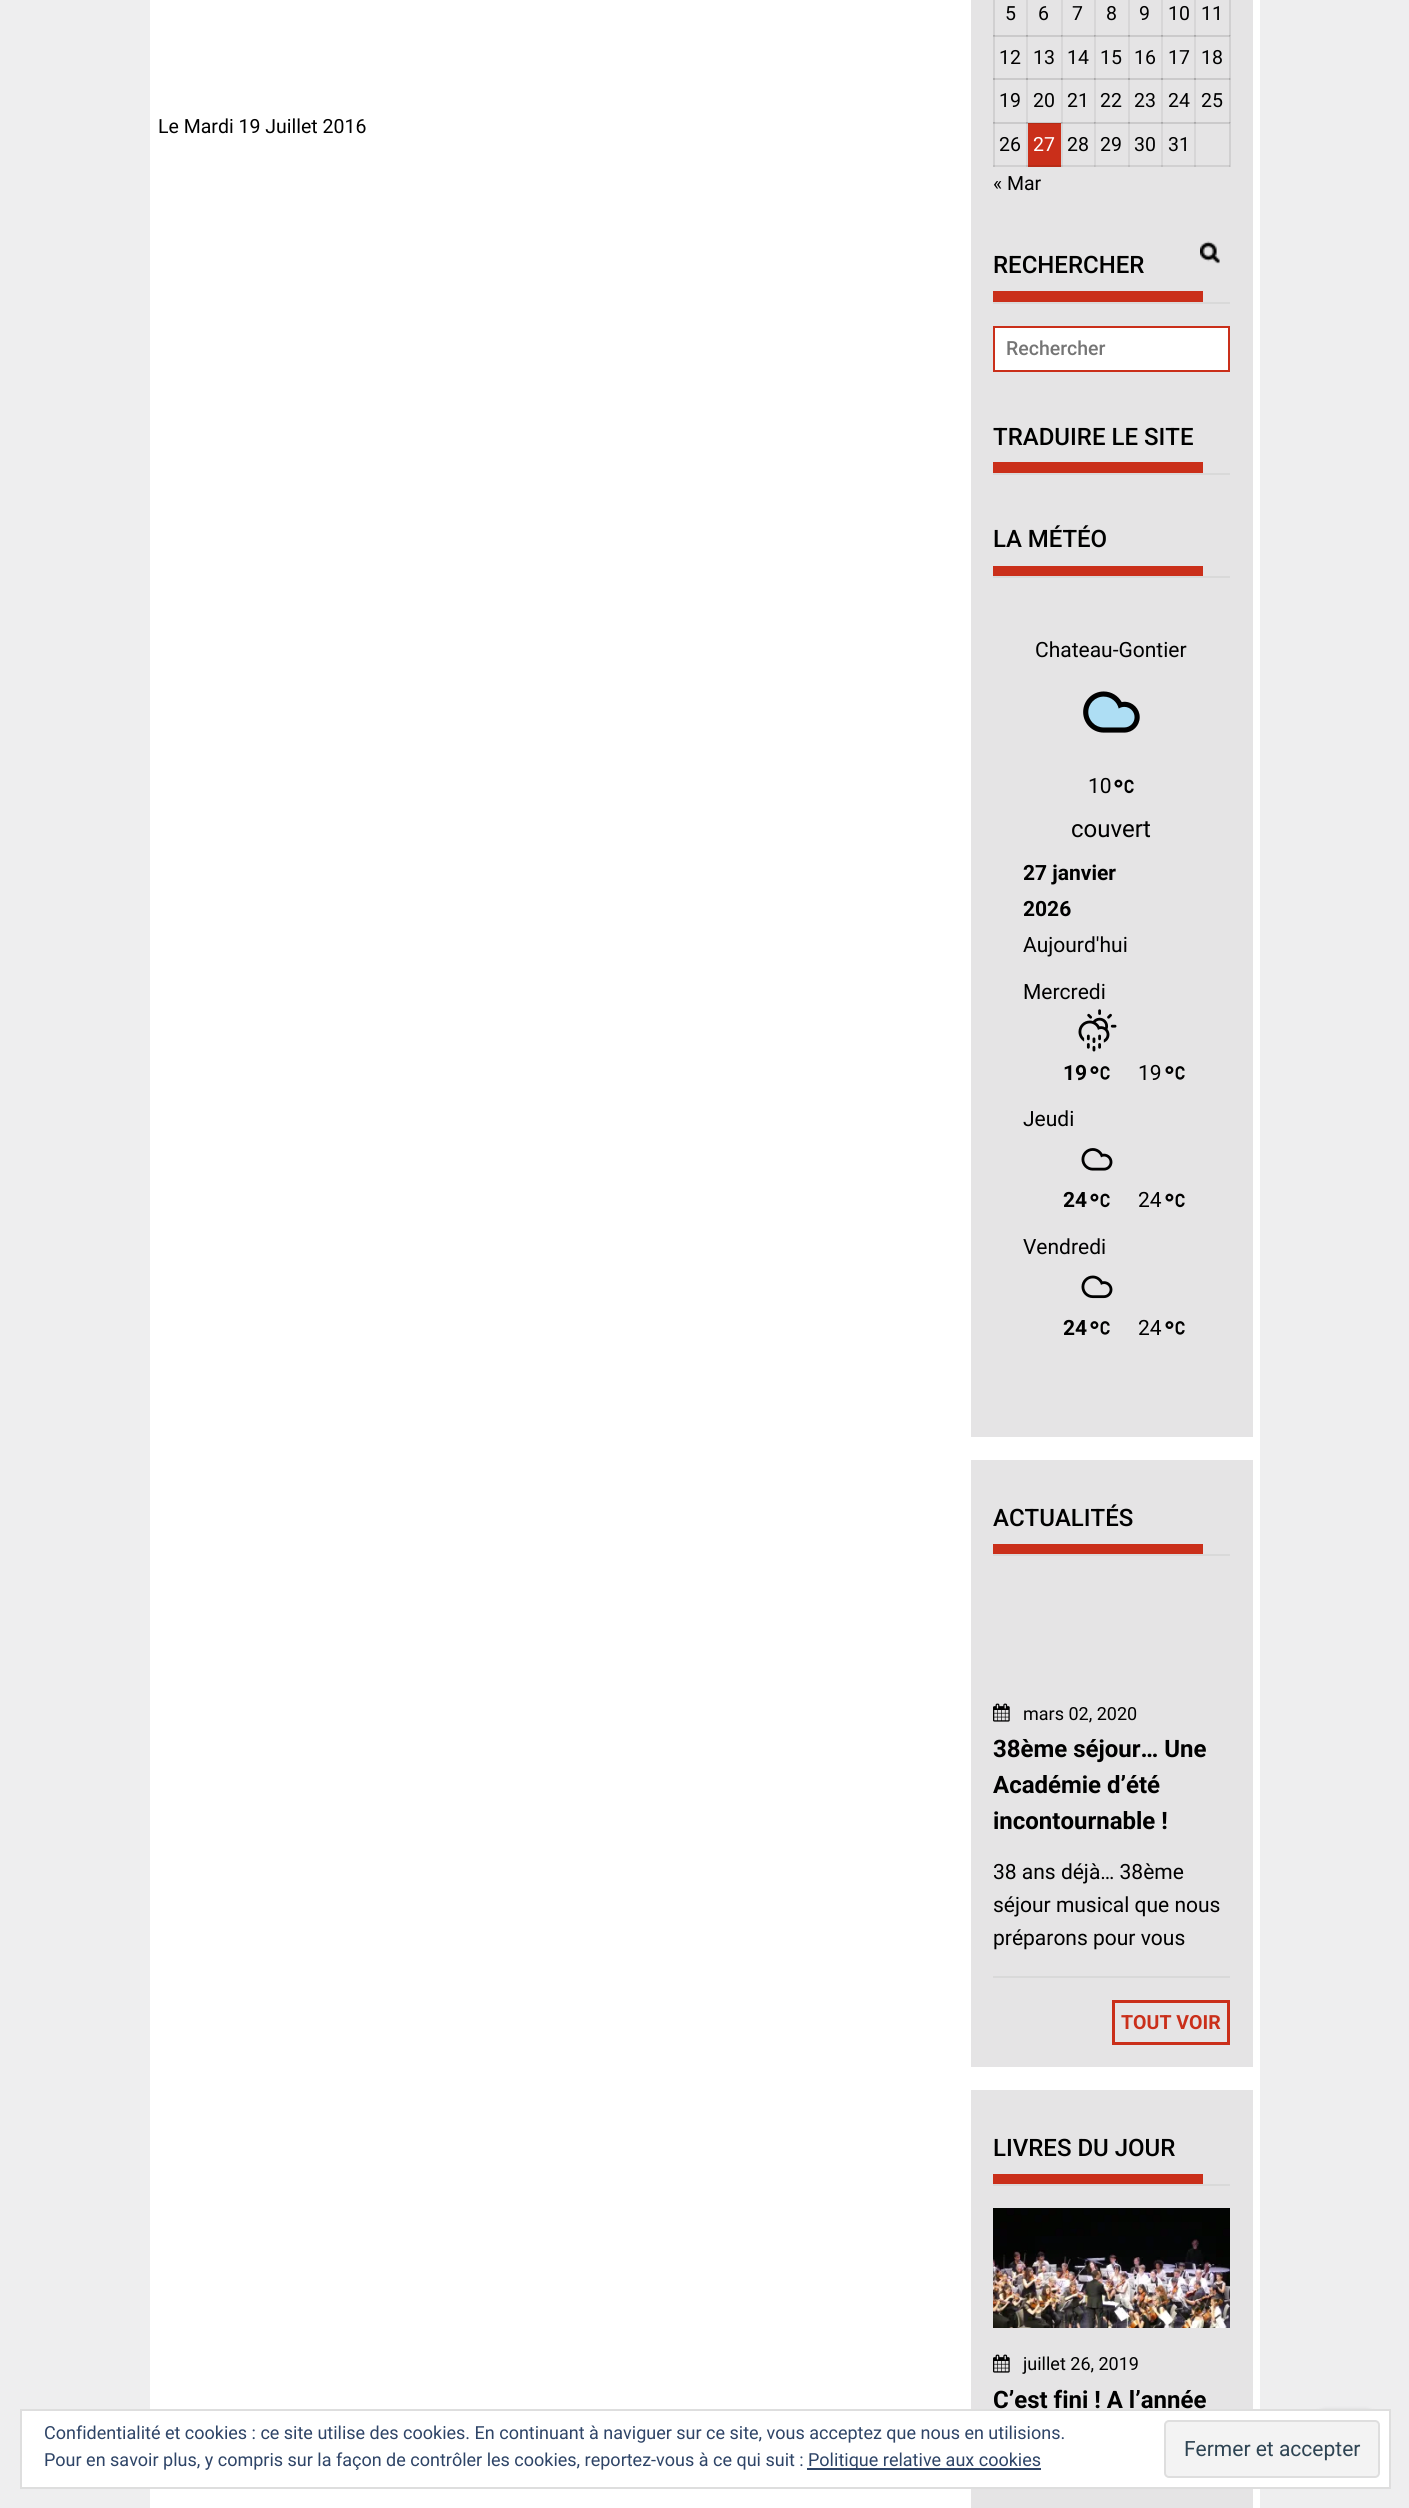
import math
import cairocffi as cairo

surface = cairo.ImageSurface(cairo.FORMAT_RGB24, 1409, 2508)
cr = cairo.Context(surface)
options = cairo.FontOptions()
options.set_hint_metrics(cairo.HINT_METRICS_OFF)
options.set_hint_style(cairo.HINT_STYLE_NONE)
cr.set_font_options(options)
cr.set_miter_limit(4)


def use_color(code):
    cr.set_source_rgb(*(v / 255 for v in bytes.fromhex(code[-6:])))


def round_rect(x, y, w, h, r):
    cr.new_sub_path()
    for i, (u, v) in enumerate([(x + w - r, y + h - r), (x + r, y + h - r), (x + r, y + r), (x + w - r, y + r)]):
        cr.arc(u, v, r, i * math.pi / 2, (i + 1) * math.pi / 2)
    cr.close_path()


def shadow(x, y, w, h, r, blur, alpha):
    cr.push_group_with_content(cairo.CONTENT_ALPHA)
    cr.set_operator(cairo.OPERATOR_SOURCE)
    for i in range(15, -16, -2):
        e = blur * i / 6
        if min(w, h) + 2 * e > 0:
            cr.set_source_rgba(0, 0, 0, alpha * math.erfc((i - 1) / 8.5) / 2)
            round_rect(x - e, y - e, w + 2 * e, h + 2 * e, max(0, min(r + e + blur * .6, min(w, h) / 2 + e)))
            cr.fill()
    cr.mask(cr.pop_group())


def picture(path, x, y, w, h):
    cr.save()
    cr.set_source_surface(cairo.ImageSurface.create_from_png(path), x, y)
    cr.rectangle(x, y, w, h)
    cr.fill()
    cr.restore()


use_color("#eeeeef")
cr.paint()
use_color("#ffffff")
cr.rectangle(150, 0, 1110, 2508)
cr.fill()
cr.select_font_face("Roboto")
cr.set_font_size(19.5)
use_color("#000000")
cr.move_to(158, 133)
cr.show_text("Le Mardi 19 Juillet 2016")
use_color("#e5e4e5")
cr.rectangle(971, 0, 282, 1437)
cr.fill()
use_color("#d7d6d7")
cr.rectangle(1026, 0, 2, 167)
cr.fill()
cr.rectangle(1061, 0, 2, 167)
cr.fill()
cr.rectangle(1094, 0, 2, 167)
cr.fill()
cr.rectangle(1128, 0, 2, 167)
cr.fill()
cr.rectangle(1161, 0, 2, 167)
cr.fill()
cr.rectangle(1194, 0, 2, 167)
cr.fill()
use_color("#cbcacb")
cr.rectangle(993, 35, 237, 2)
cr.fill()
use_color("#b3b2b3")
cr.rectangle(1026, 36, 2, 1)
cr.fill()
use_color("#a9a8a9")
cr.rectangle(1026, 35, 2, 1)
cr.fill()
use_color("#bfbebf")
cr.rectangle(1061, 36, 2, 1)
cr.fill()
use_color("#b3b2b3")
cr.rectangle(1061, 35, 2, 1)
cr.fill()
cr.rectangle(1061, 35, 1, 2)
cr.fill()
use_color("#a9a8a9")
cr.rectangle(1061, 35, 1, 1)
cr.fill()
use_color("#bfbebf")
cr.rectangle(1094, 36, 2, 1)
cr.fill()
use_color("#b3b2b3")
cr.rectangle(1094, 35, 2, 1)
cr.fill()
cr.rectangle(1094, 35, 1, 2)
cr.fill()
use_color("#a9a8a9")
cr.rectangle(1094, 35, 1, 1)
cr.fill()
use_color("#b3b2b3")
cr.rectangle(1128, 36, 2, 1)
cr.fill()
use_color("#a9a8a9")
cr.rectangle(1128, 35, 2, 1)
cr.fill()
use_color("#b3b2b3")
cr.rectangle(1161, 36, 2, 1)
cr.fill()
use_color("#a9a8a9")
cr.rectangle(1161, 35, 2, 1)
cr.fill()
use_color("#b3b2b3")
cr.rectangle(1194, 36, 2, 1)
cr.fill()
use_color("#a9a8a9")
cr.rectangle(1194, 35, 2, 1)
cr.fill()
use_color("#cbcacb")
cr.rectangle(993, 78, 237, 2)
cr.fill()
use_color("#a9a8a9")
cr.rectangle(1026, 78, 2, 2)
cr.fill()
use_color("#b3b2b3")
cr.rectangle(1061, 78, 2, 2)
cr.fill()
use_color("#a9a8a9")
cr.rectangle(1061, 78, 1, 2)
cr.fill()
use_color("#b3b2b3")
cr.rectangle(1094, 78, 2, 2)
cr.fill()
use_color("#a9a8a9")
cr.rectangle(1094, 78, 1, 2)
cr.fill()
cr.rectangle(1128, 78, 2, 2)
cr.fill()
cr.rectangle(1161, 78, 2, 2)
cr.fill()
cr.rectangle(1194, 78, 2, 2)
cr.fill()
use_color("#cbcacb")
cr.rectangle(993, 122, 35, 2)
cr.fill()
cr.rectangle(1026, 122, 36, 1)
cr.fill()
use_color("#b3b2b3")
cr.rectangle(1026, 123, 2, 1)
cr.fill()
use_color("#a9a8a9")
cr.rectangle(1026, 122, 2, 1)
cr.fill()
use_color("#cbcacb")
cr.rectangle(1061, 122, 169, 2)
cr.fill()
use_color("#bfbebf")
cr.rectangle(1061, 123, 2, 1)
cr.fill()
use_color("#b3b2b3")
cr.rectangle(1061, 122, 2, 1)
cr.fill()
cr.rectangle(1061, 122, 1, 2)
cr.fill()
use_color("#a9a8a9")
cr.rectangle(1061, 122, 1, 1)
cr.fill()
use_color("#bfbebf")
cr.rectangle(1094, 123, 2, 1)
cr.fill()
use_color("#b3b2b3")
cr.rectangle(1094, 122, 2, 1)
cr.fill()
cr.rectangle(1094, 122, 1, 2)
cr.fill()
use_color("#a9a8a9")
cr.rectangle(1094, 122, 1, 1)
cr.fill()
use_color("#b3b2b3")
cr.rectangle(1128, 123, 2, 1)
cr.fill()
use_color("#a9a8a9")
cr.rectangle(1128, 122, 2, 1)
cr.fill()
use_color("#b3b2b3")
cr.rectangle(1161, 123, 2, 1)
cr.fill()
use_color("#a9a8a9")
cr.rectangle(1161, 122, 2, 1)
cr.fill()
use_color("#b3b2b3")
cr.rectangle(1194, 123, 2, 1)
cr.fill()
use_color("#a9a8a9")
cr.rectangle(1194, 122, 2, 1)
cr.fill()
use_color("#d1d0d1")
cr.rectangle(993, 0, 2, 167)
cr.fill()
use_color("#b9b8b9")
cr.rectangle(993, 36, 2, 1)
cr.fill()
use_color("#aeadae")
cr.rectangle(993, 35, 2, 1)
cr.fill()
cr.rectangle(993, 78, 2, 2)
cr.fill()
use_color("#b9b8b9")
cr.rectangle(993, 123, 2, 1)
cr.fill()
use_color("#aeadae")
cr.rectangle(993, 122, 2, 1)
cr.fill()
use_color("#d1d0d1")
cr.rectangle(993, 165, 35, 2)
cr.fill()
use_color("#bfbebf")
cr.rectangle(1026, 165, 2, 2)
cr.fill()
use_color("#d1d0d1")
cr.rectangle(1061, 165, 169, 2)
cr.fill()
use_color("#c5c4c5")
cr.rectangle(1061, 165, 2, 2)
cr.fill()
use_color("#bfbebf")
cr.rectangle(1061, 165, 1, 2)
cr.fill()
use_color("#c5c4c5")
cr.rectangle(1094, 165, 2, 2)
cr.fill()
use_color("#bfbebf")
cr.rectangle(1094, 165, 1, 2)
cr.fill()
cr.rectangle(1128, 165, 2, 2)
cr.fill()
cr.rectangle(1161, 165, 2, 2)
cr.fill()
cr.rectangle(1194, 165, 2, 2)
cr.fill()
cr.rectangle(993, 165, 2, 2)
cr.fill()
use_color("#d1d0d1")
cr.rectangle(1229, 0, 2, 167)
cr.fill()
use_color("#c5c4c5")
cr.rectangle(1229, 35, 2, 1)
cr.fill()
use_color("#b9b8b9")
cr.rectangle(1229, 35, 1, 2)
cr.fill()
use_color("#aeadae")
cr.rectangle(1229, 35, 1, 1)
cr.fill()
use_color("#c5c4c5")
cr.rectangle(1229, 78, 2, 2)
cr.fill()
use_color("#aeadae")
cr.rectangle(1229, 78, 1, 2)
cr.fill()
use_color("#c5c4c5")
cr.rectangle(1229, 122, 2, 1)
cr.fill()
use_color("#b9b8b9")
cr.rectangle(1229, 122, 1, 2)
cr.fill()
use_color("#aeadae")
cr.rectangle(1229, 122, 1, 1)
cr.fill()
use_color("#bfbebf")
cr.rectangle(1229, 165, 1, 2)
cr.fill()
use_color("#000000")
cr.move_to(1005, 20)
cr.show_text("5")
cr.move_to(1038, 20)
cr.show_text("6")
cr.move_to(1072, 20)
cr.show_text("7")
cr.move_to(1106, 20)
cr.show_text("8")
cr.move_to(1139, 20)
cr.show_text("9")
cr.move_to(1168, 20)
cr.show_text("10")
cr.move_to(1201, 20)
cr.show_text("11")
cr.move_to(999, 64)
cr.show_text("12")
cr.move_to(1033, 64)
cr.show_text("13")
cr.move_to(1067, 64)
cr.show_text("14")
cr.move_to(1100, 64)
cr.show_text("15")
cr.move_to(1134, 64)
cr.show_text("16")
cr.move_to(1168, 64)
cr.show_text("17")
cr.move_to(1201, 64)
cr.show_text("18")
cr.move_to(999, 107)
cr.show_text("19")
cr.move_to(1033, 107)
cr.show_text("20")
cr.move_to(1067, 107)
cr.show_text("21")
cr.move_to(1100, 107)
cr.show_text("22")
cr.move_to(1134, 107)
cr.show_text("23")
cr.move_to(1168, 107)
cr.show_text("24")
cr.move_to(1201, 107)
cr.show_text("25")
cr.move_to(999, 151)
cr.show_text("26")
use_color("#ca2f1a")
cr.rectangle(1028, 124, 33, 41)
cr.fill()
use_color("#b22b16")
cr.rectangle(1028, 123, 33, 1)
cr.fill()
use_color("#b82c17")
cr.rectangle(1028, 165, 33, 2)
cr.fill()
use_color("#ffffff")
cr.move_to(1033, 151)
cr.show_text("27")
use_color("#000000")
cr.move_to(1067, 151)
cr.show_text("28")
cr.move_to(1100, 151)
cr.show_text("29")
cr.move_to(1134, 151)
cr.show_text("30")
cr.move_to(1168, 151)
cr.show_text("31")
cr.move_to(993, 190)
cr.show_text("« Mar")
use_color("#d9d9d9")
cr.rectangle(993, 302, 237, 2)
cr.fill()
cr.select_font_face("Roboto Medium")
cr.set_font_size(24)
use_color("#000000")
cr.move_to(993, 273)
cr.show_text("RECHERCHER")
use_color("#ca2f1a")
cr.rectangle(993, 291, 210, 11)
cr.fill()
picture("img1.png", 1200, 241, 20, 23)
use_color("#ffffff")
cr.rectangle(994, 327, 235, 44)
cr.fill_preserve()
use_color("#ca2f1a")
cr.stroke()
cr.set_font_size(19.5)
use_color("#757575")
cr.move_to(1006, 355)
cr.show_text("Rechercher")
use_color("#d9d9d9")
cr.rectangle(993, 473, 237, 2)
cr.fill()
cr.set_font_size(24)
use_color("#000000")
cr.move_to(993, 445)
cr.show_text("TRADUIRE LE SITE")
use_color("#ca2f1a")
cr.rectangle(993, 462, 210, 11)
cr.fill()
use_color("#d9d9d9")
cr.rectangle(993, 576, 237, 2)
cr.fill()
use_color("#000000")
cr.move_to(993, 547)
cr.show_text("LA MÉTÉO")
use_color("#ca2f1a")
cr.rectangle(993, 566, 210, 10)
cr.fill()
cr.select_font_face("Roboto")
cr.set_font_size(21)
use_color("#000000")
cr.move_to(1035, 657)
cr.show_text("Chateau-Gontier")
picture("img2.png", 1083, 691, 57, 42)
cr.move_to(1088, 793)
cr.show_text("10")
picture("img3.png", 1114, 779, 20, 15)
cr.set_font_size(24)
cr.move_to(1071, 837)
cr.show_text("couvert")
cr.select_font_face("Roboto", cairo.FONT_SLANT_NORMAL, cairo.FONT_WEIGHT_BOLD)
cr.set_font_size(21)
cr.move_to(1023, 880)
cr.show_text("27 janvier")
cr.move_to(1023, 916)
cr.show_text("2026")
cr.select_font_face("Roboto")
cr.move_to(1023, 952)
cr.show_text("Aujourd'hui")
cr.move_to(1023, 999)
cr.show_text("Mercredi")
picture("img4.png", 1078, 1009, 39, 43)
cr.select_font_face("Roboto", cairo.FONT_SLANT_NORMAL, cairo.FONT_WEIGHT_BOLD)
cr.move_to(1063, 1080)
cr.show_text("19")
picture("img5.png", 1090, 1066, 20, 14)
cr.select_font_face("Roboto")
cr.move_to(1138, 1080)
cr.show_text("19")
picture("img5.png", 1165, 1066, 20, 14)
cr.move_to(1023, 1126)
cr.show_text("Jeudi")
picture("img6.png", 1081, 1148, 32, 23)
cr.select_font_face("Roboto", cairo.FONT_SLANT_NORMAL, cairo.FONT_WEIGHT_BOLD)
cr.move_to(1063, 1207)
cr.show_text("24")
picture("img3.png", 1090, 1193, 20, 15)
cr.select_font_face("Roboto")
cr.move_to(1138, 1207)
cr.show_text("24")
picture("img3.png", 1165, 1193, 20, 15)
cr.move_to(1023, 1254)
cr.show_text("Vendredi")
picture("img7.png", 1081, 1275, 32, 24)
cr.select_font_face("Roboto", cairo.FONT_SLANT_NORMAL, cairo.FONT_WEIGHT_BOLD)
cr.move_to(1063, 1335)
cr.show_text("24")
picture("img5.png", 1090, 1321, 20, 14)
cr.select_font_face("Roboto")
cr.move_to(1138, 1335)
cr.show_text("24")
picture("img5.png", 1165, 1321, 20, 14)
use_color("#e5e4e5")
cr.rectangle(971, 1460, 282, 607)
cr.fill()
use_color("#d9d9d9")
cr.rectangle(993, 1554, 237, 2)
cr.fill()
cr.select_font_face("Roboto Medium")
cr.set_font_size(24)
use_color("#000000")
cr.move_to(993, 1526)
cr.show_text("ACTUALITÉS")
use_color("#ca2f1a")
cr.rectangle(993, 1544, 210, 10)
cr.fill()
use_color("#d9d9d9")
cr.rectangle(993, 1976, 237, 2)
cr.fill()
picture("img8.png", 993, 1703, 17, 19)
cr.select_font_face("Roboto")
cr.set_font_size(18)
use_color("#000000")
cr.move_to(1023, 1720)
cr.show_text("mars 02, 2020")
cr.select_font_face("Roboto", cairo.FONT_SLANT_NORMAL, cairo.FONT_WEIGHT_BOLD)
cr.set_font_size(24)
cr.move_to(993, 1757)
cr.show_text("38ème séjour… Une")
cr.move_to(993, 1793)
cr.show_text("Académie d’été")
cr.move_to(993, 1829)
cr.show_text("incontournable !")
cr.select_font_face("Roboto")
cr.set_font_size(21)
cr.move_to(993, 1879)
cr.show_text("38 ans déjà… 38ème")
cr.move_to(993, 1912)
cr.show_text("séjour musical que nous")
cr.move_to(993, 1945)
cr.show_text("préparons pour vous")
cr.rectangle(1113.5, 2001.5, 115, 42)
use_color("#ca2f1a")
cr.set_line_width(3)
cr.stroke()
cr.select_font_face("Roboto", cairo.FONT_SLANT_NORMAL, cairo.FONT_WEIGHT_BOLD)
cr.set_font_size(19.5)
cr.move_to(1121, 2029)
cr.show_text("TOUT VOIR")
use_color("#e5e4e5")
cr.rectangle(971, 2090, 282, 418)
cr.fill()
use_color("#d9d9d9")
cr.rectangle(993, 2184, 237, 2)
cr.fill()
cr.select_font_face("Roboto Medium")
cr.set_font_size(24)
use_color("#000000")
cr.move_to(993, 2156)
cr.show_text("LIVRES DU JOUR")
use_color("#ca2f1a")
cr.rectangle(993, 2174, 210, 10)
cr.fill()
picture("img9.png", 993, 2208, 237, 120)
picture("img8.png", 993, 2354, 17, 19)
cr.select_font_face("Roboto")
cr.set_font_size(18)
use_color("#000000")
cr.move_to(1023, 2370)
cr.show_text("juillet 26, 2019")
cr.select_font_face("Roboto", cairo.FONT_SLANT_NORMAL, cairo.FONT_WEIGHT_BOLD)
cr.set_font_size(24)
cr.move_to(993, 2408)
cr.show_text("C’est fini ! A l’année")
use_color("#0d0d0e")
shadow(1311, 2411, 69, 69, 14, 2, 0.4)
use_color("#ffffff")
cr.rectangle(21, 2410, 1369, 78)
cr.fill_preserve()
use_color("#dedede")
cr.set_line_width(2)
cr.stroke()
cr.select_font_face("Roboto")
cr.set_font_size(18)
use_color("#2e4467")
cr.move_to(44, 2439)
cr.show_text("Confidentialité et cookies : ce site utilise des cookies. En continuant à naviguer sur ce site, vous acceptez que nous en utilisions.")
cr.move_to(44, 2466)
cr.show_text("Pour en savoir plus, y compris sur la façon de contrôler les cookies, reportez-vous à ce qui suit :")
cr.rectangle(807, 2468, 234, 2)
cr.fill()
cr.move_to(808, 2466)
cr.show_text("Politique relative aux cookies")
use_color("#f3f3f3")
round_rect(1165, 2421, 214, 56, 4)
cr.fill_preserve()
use_color("#dedede")
cr.stroke()
cr.set_font_size(21)
use_color("#2e4453")
cr.move_to(1184, 2456)
cr.show_text("Fermer et accepter")
surface.write_to_png("result.png")
